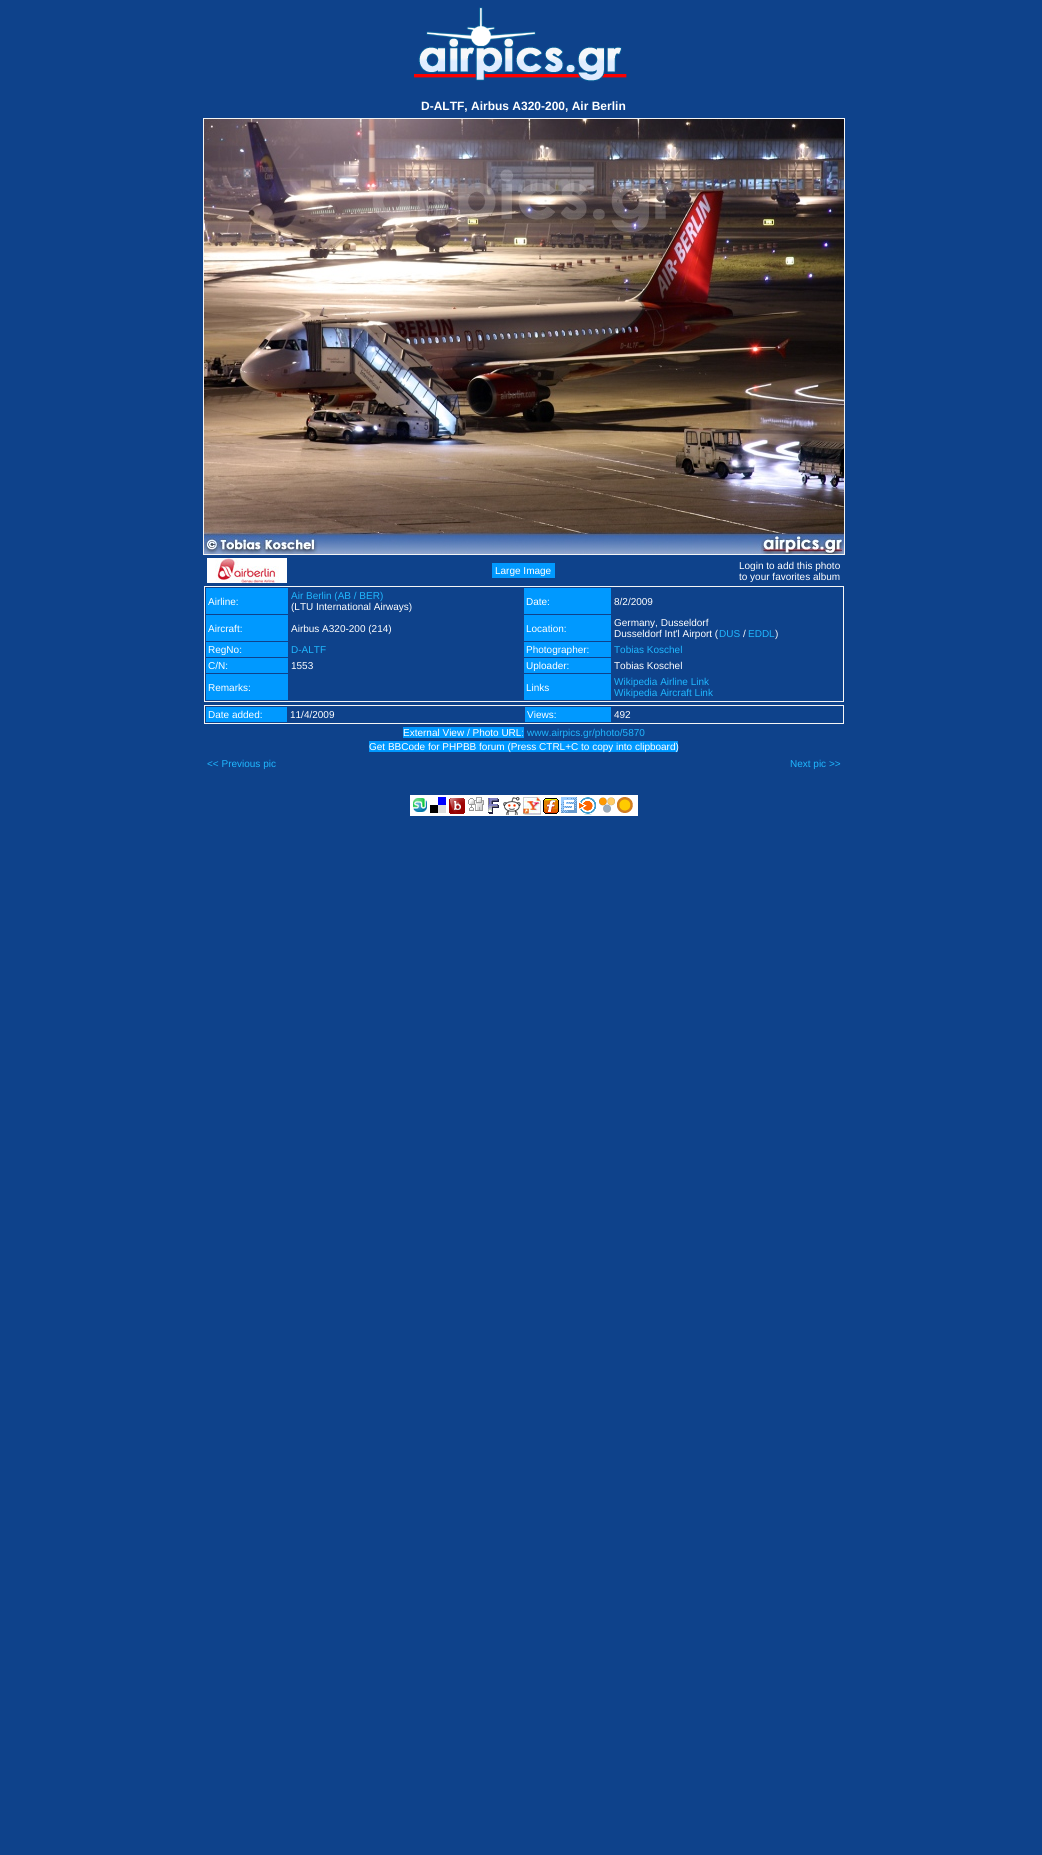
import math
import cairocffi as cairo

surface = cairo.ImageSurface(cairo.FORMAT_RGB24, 1042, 1855)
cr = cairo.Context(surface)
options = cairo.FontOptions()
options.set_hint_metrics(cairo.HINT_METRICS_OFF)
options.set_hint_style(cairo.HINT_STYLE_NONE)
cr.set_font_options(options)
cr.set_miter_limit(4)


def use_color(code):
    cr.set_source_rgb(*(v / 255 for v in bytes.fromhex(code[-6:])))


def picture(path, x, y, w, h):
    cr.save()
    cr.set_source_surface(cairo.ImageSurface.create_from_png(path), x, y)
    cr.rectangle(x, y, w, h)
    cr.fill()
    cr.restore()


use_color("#0e428b")
cr.paint()
picture("img1.png", 414, 7, 213, 75)
cr.select_font_face("Liberation Sans", cairo.FONT_SLANT_NORMAL, cairo.FONT_WEIGHT_BOLD)
cr.set_font_size(12)
use_color("#ffffff")
cr.move_to(421, 110)
cr.show_text("D-ALTF, Airbus A320-200, Air Berlin")
cr.rectangle(203.5, 118.5, 641, 436)
use_color("#f5f5f5")
cr.set_line_width(1)
cr.stroke()
picture("img2.png", 204, 119, 640, 435)
picture("img3.png", 207, 558, 80, 25)
use_color("#0099ff")
cr.rectangle(492, 563, 63, 15)
cr.fill()
cr.select_font_face("Liberation Sans")
cr.set_font_size(10)
use_color("#ffffff")
cr.move_to(495, 574)
cr.show_text("Large Image")
cr.move_to(739, 569)
cr.show_text("Login to add this photo")
cr.move_to(739, 580)
cr.show_text("to your favorites album")
cr.rectangle(204.5, 586.5, 639, 115)
use_color("#f5f5f5")
cr.stroke()
use_color("#0099ff")
cr.rectangle(206, 588, 82, 26)
cr.fill()
use_color("#ffffff")
cr.move_to(208, 605)
cr.show_text("Airline:")
use_color("#1fb7ff")
cr.move_to(291, 599)
cr.show_text("Air Berlin (AB / BER)")
use_color("#ffffff")
cr.move_to(291, 610)
cr.show_text("(LTU International Airways)")
use_color("#0099ff")
cr.rectangle(524, 588, 87, 26)
cr.fill()
use_color("#ffffff")
cr.move_to(526, 605)
cr.show_text("Date:")
cr.move_to(614, 605)
cr.show_text("8/2/2009")
use_color("#0099ff")
cr.rectangle(206, 615, 82, 26)
cr.fill()
use_color("#ffffff")
cr.move_to(208, 632)
cr.show_text("Aircraft:")
cr.move_to(291, 632)
cr.show_text("Airbus A320-200 (214)")
use_color("#0099ff")
cr.rectangle(524, 615, 87, 26)
cr.fill()
use_color("#ffffff")
cr.move_to(526, 632)
cr.show_text("Location:")
cr.move_to(614, 626)
cr.show_text("Germany, Dusseldorf")
cr.move_to(614, 637)
cr.show_text("Dusseldorf Int'l Airport (")
use_color("#1fb7ff")
cr.move_to(719, 637)
cr.show_text("DUS")
use_color("#ffffff")
cr.move_to(743, 637)
cr.show_text("/")
use_color("#1fb7ff")
cr.move_to(748, 637)
cr.show_text("EDDL")
use_color("#ffffff")
cr.move_to(775, 637)
cr.show_text(")")
use_color("#0099ff")
cr.rectangle(206, 642, 82, 15)
cr.fill()
use_color("#ffffff")
cr.move_to(208, 653)
cr.show_text("RegNo:")
use_color("#1fb7ff")
cr.move_to(291, 653)
cr.show_text("D-ALTF")
use_color("#0099ff")
cr.rectangle(524, 642, 87, 15)
cr.fill()
use_color("#ffffff")
cr.move_to(526, 653)
cr.show_text("Photographer:")
use_color("#1fb7ff")
cr.move_to(614, 653)
cr.show_text("Tobias Koschel")
use_color("#0099ff")
cr.rectangle(206, 658, 82, 15)
cr.fill()
use_color("#ffffff")
cr.move_to(208, 669)
cr.show_text("C/N:")
cr.move_to(291, 669)
cr.show_text("1553")
use_color("#0099ff")
cr.rectangle(524, 658, 87, 15)
cr.fill()
use_color("#ffffff")
cr.move_to(526, 669)
cr.show_text("Uploader:")
cr.move_to(614, 669)
cr.show_text("Tobias Koschel")
use_color("#0099ff")
cr.rectangle(206, 674, 82, 26)
cr.fill()
use_color("#ffffff")
cr.move_to(208, 691)
cr.show_text("Remarks:")
use_color("#0099ff")
cr.rectangle(524, 674, 87, 26)
cr.fill()
use_color("#ffffff")
cr.move_to(526, 691)
cr.show_text("Links")
use_color("#1fb7ff")
cr.move_to(614, 685)
cr.show_text("Wikipedia Airline Link")
cr.move_to(614, 696)
cr.show_text("Wikipedia Aircraft Link")
cr.rectangle(204.5, 705.5, 639, 18)
use_color("#f5f5f5")
cr.stroke()
use_color("#0099ff")
cr.rectangle(206, 707, 81, 15)
cr.fill()
use_color("#ffffff")
cr.move_to(208, 718)
cr.show_text("Date added:")
cr.move_to(290, 718)
cr.show_text("11/4/2009")
use_color("#0099ff")
cr.rectangle(525, 707, 86, 15)
cr.fill()
use_color("#ffffff")
cr.move_to(527, 718)
cr.show_text("Views:")
cr.move_to(614, 718)
cr.show_text("492")
use_color("#0099ff")
cr.rectangle(403, 727, 121, 11)
cr.fill()
use_color("#ffffff")
cr.move_to(403, 736)
cr.show_text("External View / Photo URL:")
use_color("#1fb7ff")
cr.move_to(527, 736)
cr.show_text("www.airpics.gr/photo/5870")
use_color("#0099ff")
cr.rectangle(369, 741, 309, 11)
cr.fill()
use_color("#ffffff")
cr.move_to(369, 750)
cr.show_text("Get BBCode for PHPBB forum (Press CTRL+C to copy into clipboard)")
use_color("#1fb7ff")
cr.move_to(207, 767)
cr.show_text("<< Previous pic")
cr.move_to(790, 767)
cr.show_text("Next pic >>")
use_color("#ffffff")
cr.rectangle(410, 795, 228, 21)
cr.fill()
picture("img4.png", 413, 798, 14, 14)
picture("img5.png", 430, 797, 16, 16)
picture("img6.png", 449, 798, 16, 16)
picture("img7.png", 468, 797, 16, 14)
picture("img8.png", 488, 798, 11, 16)
picture("img9.png", 503, 797, 18, 18)
picture("img10.png", 523, 797, 18, 18)
picture("img11.png", 543, 798, 16, 16)
picture("img12.png", 561, 797, 16, 16)
picture("img13.png", 579, 797, 17, 18)
picture("img14.png", 599, 797, 16, 16)
picture("img15.png", 617, 797, 16, 16)
surface.write_to_png("result.png")
